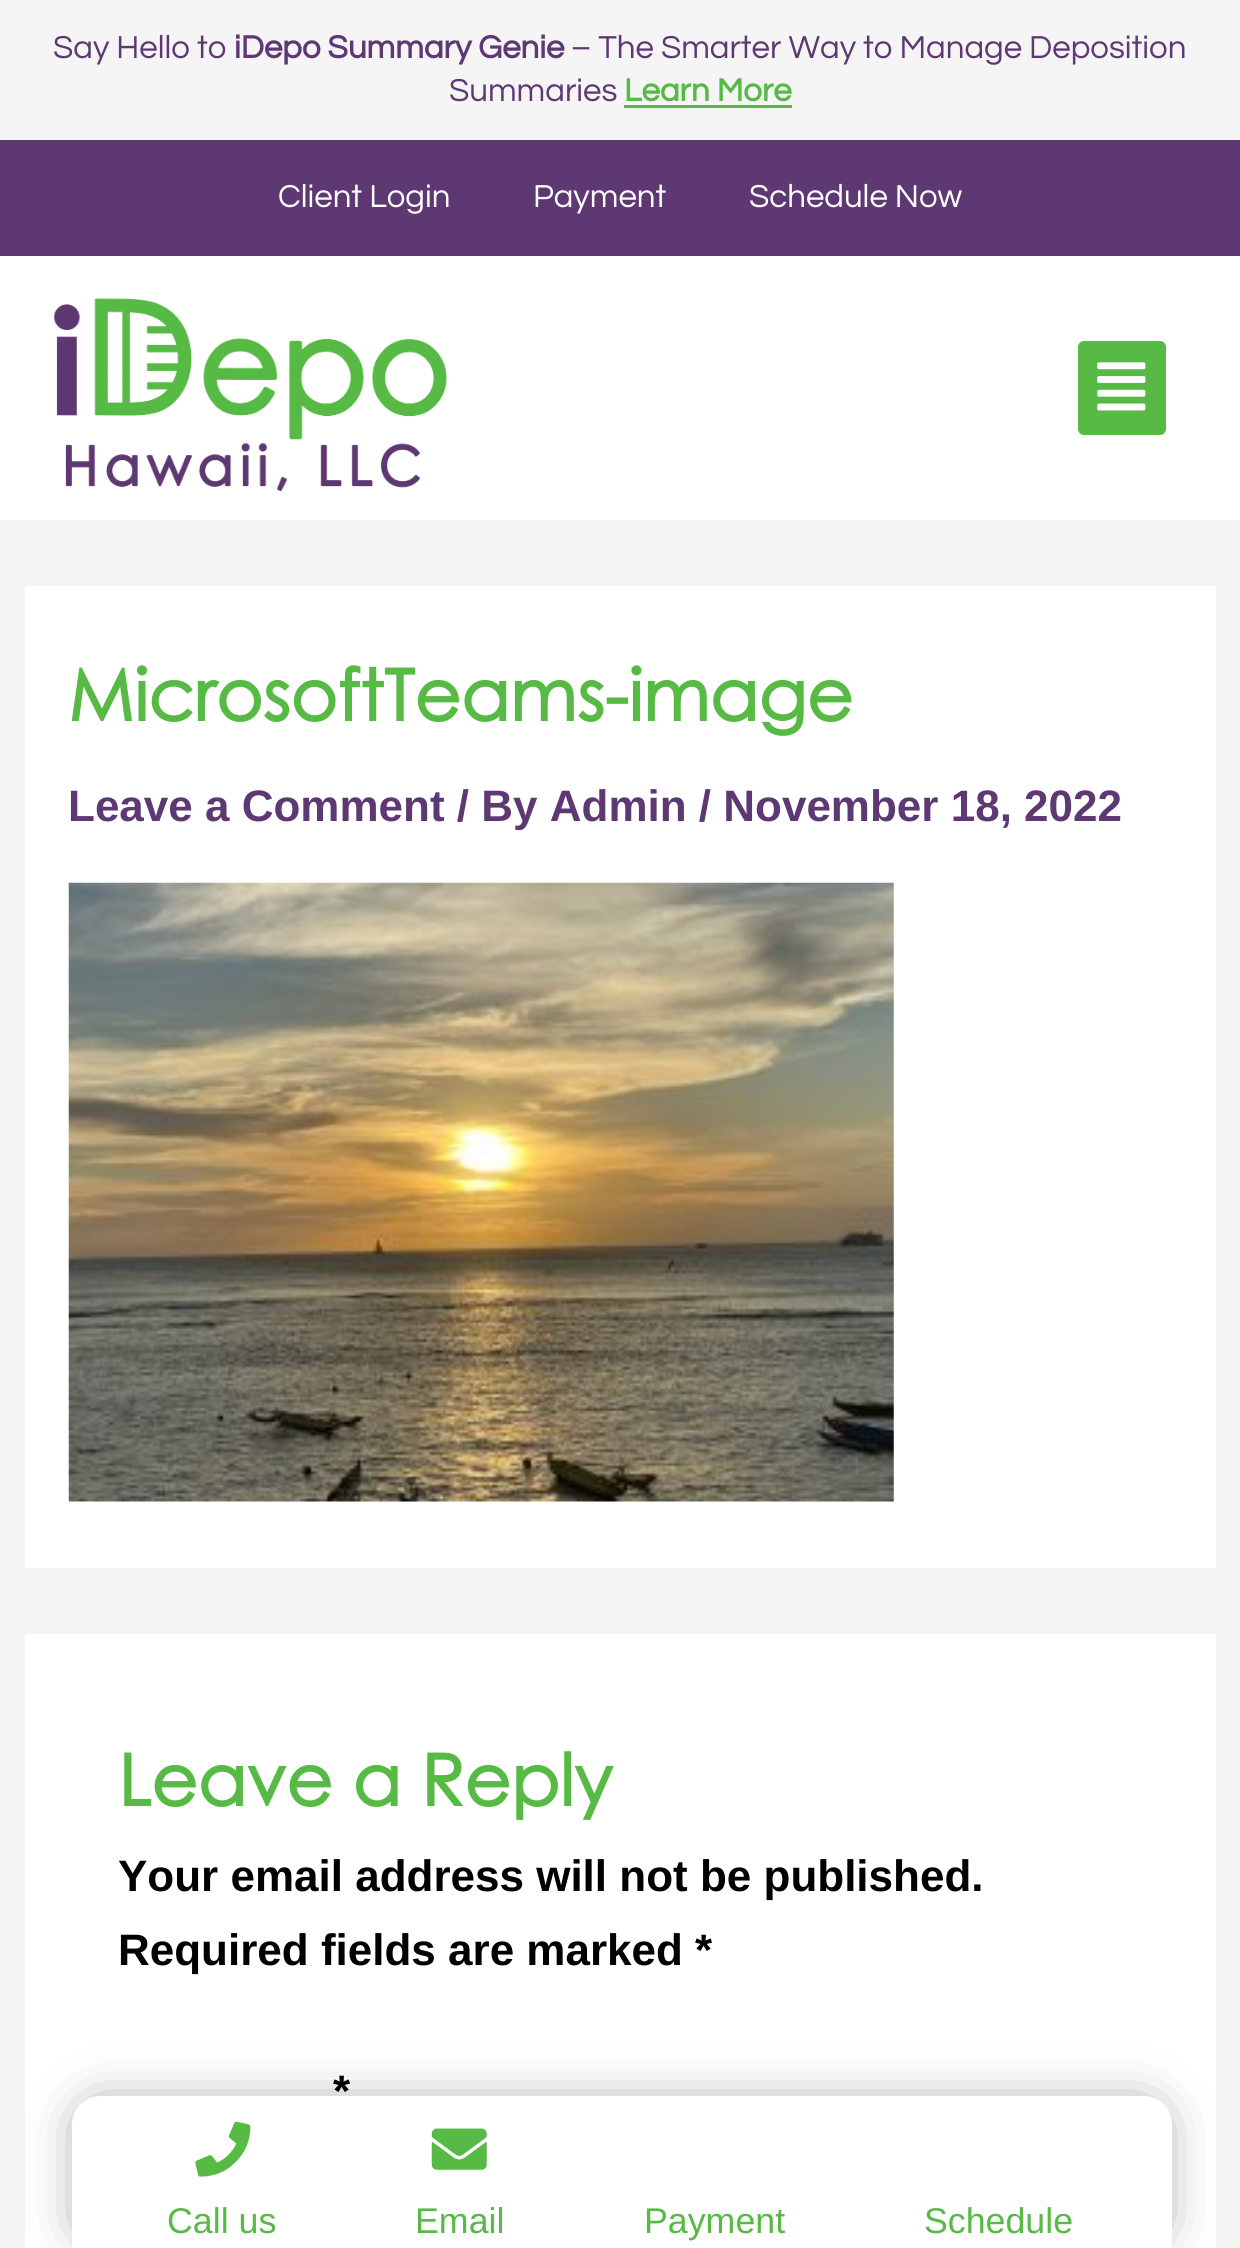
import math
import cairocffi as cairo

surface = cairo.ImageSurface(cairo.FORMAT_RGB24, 1240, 2248)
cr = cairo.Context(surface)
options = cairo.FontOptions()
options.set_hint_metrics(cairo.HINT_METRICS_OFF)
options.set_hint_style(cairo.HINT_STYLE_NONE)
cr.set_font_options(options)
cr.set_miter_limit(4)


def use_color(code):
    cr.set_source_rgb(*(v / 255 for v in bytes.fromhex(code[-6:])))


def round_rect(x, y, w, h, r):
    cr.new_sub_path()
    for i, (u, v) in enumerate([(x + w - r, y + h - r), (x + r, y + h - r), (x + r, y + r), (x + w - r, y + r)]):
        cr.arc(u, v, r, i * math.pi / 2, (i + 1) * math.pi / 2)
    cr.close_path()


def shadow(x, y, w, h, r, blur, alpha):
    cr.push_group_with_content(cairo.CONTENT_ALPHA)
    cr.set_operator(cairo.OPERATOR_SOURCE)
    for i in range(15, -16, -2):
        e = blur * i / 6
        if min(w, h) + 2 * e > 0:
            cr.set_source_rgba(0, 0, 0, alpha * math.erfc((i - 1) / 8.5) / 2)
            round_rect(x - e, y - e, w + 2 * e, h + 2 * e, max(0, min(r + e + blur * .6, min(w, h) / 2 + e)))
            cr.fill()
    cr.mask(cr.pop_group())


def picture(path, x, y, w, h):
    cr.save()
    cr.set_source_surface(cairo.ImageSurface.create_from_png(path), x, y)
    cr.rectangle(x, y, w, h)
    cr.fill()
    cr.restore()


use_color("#f5f5f5")
cr.paint()
cr.select_font_face("Questrial")
cr.set_font_size(33)
use_color("#5e3873")
cr.move_to(53, 58)
cr.show_text("Say Hello to")
cr.select_font_face("Questrial", cairo.FONT_SLANT_NORMAL, cairo.FONT_WEIGHT_BOLD)
cr.move_to(234, 58)
cr.show_text("iDepo Summary Genie")
cr.select_font_face("Questrial")
cr.move_to(571, 58)
cr.show_text("– The Smarter Way to Manage Deposition")
cr.move_to(449, 101)
cr.show_text("Summaries")
cr.select_font_face("Questrial", cairo.FONT_SLANT_NORMAL, cairo.FONT_WEIGHT_BOLD)
use_color("#57ba45")
cr.move_to(624, 101)
cr.show_text("Learn More")
cr.rectangle(624, 105, 168, 3)
cr.fill()
use_color("#5e3873")
cr.rectangle(0, 140, 1240, 116)
cr.fill()
cr.select_font_face("Questrial")
use_color("#ffffff")
cr.move_to(278, 207)
cr.show_text("Client Login")
cr.move_to(533, 207)
cr.show_text("Payment")
cr.move_to(749, 207)
cr.show_text("Schedule Now")
cr.rectangle(0, 256, 1240, 264)
cr.fill()
picture("img1.png", 53, 298, 394, 193)
use_color("#57ba45")
round_rect(1078, 341, 88, 94, 6)
cr.fill()
picture("img2.png", 1097, 362, 49, 49)
use_color("#ffffff")
cr.rectangle(25, 1634, 1191, 614)
cr.fill()
use_color("#000000")
shadow(88, 2112, 1067, 121, 11, 27.5, 0.5)
use_color("#ffffff")
cr.new_path()
cr.move_to(100, 2096)
cr.line_to(1144, 2096)
cr.curve_to(1159.5, 2096, 1172, 2108.5, 1172, 2124)
cr.line_to(1172, 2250)
cr.line_to(72, 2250)
cr.line_to(72, 2124)
cr.curve_to(72, 2108.5, 84.5, 2096, 100, 2096)
cr.close_path()
cr.fill()
picture("img3.png", 195, 2121, 56, 56)
cr.select_font_face("Liberation Sans")
cr.set_font_size(35.75)
use_color("#57ba45")
cr.move_to(167, 2233)
cr.show_text("Call us")
picture("img4.png", 431, 2128, 56, 42)
cr.move_to(415, 2233)
cr.show_text("Email")
cr.move_to(644, 2233)
cr.show_text("Payment")
cr.move_to(924, 2233)
cr.show_text("Schedule")
use_color("#ffffff")
cr.rectangle(25, 586, 1191, 982)
cr.fill()
cr.select_font_face("Century Gothic", cairo.FONT_SLANT_NORMAL, cairo.FONT_WEIGHT_BOLD)
cr.set_font_size(71.5)
use_color("#57ba45")
cr.move_to(68, 721)
cr.show_text("MicrosoftTeams-image")
cr.select_font_face("Liberation Sans", cairo.FONT_SLANT_NORMAL, cairo.FONT_WEIGHT_BOLD)
cr.set_font_size(44)
use_color("#5e3873")
cr.move_to(68, 821)
cr.show_text("Leave a Comment / By Admin / November 18, 2022")
picture("img5.png", 68, 882, 826, 620)
cr.select_font_face("Century Gothic", cairo.FONT_SLANT_NORMAL, cairo.FONT_WEIGHT_BOLD)
cr.set_font_size(71.5)
use_color("#57ba45")
cr.move_to(118, 1806)
cr.show_text("Leave a Reply")
cr.select_font_face("Liberation Sans", cairo.FONT_SLANT_NORMAL, cairo.FONT_WEIGHT_BOLD)
cr.set_font_size(44)
use_color("#000000")
cr.move_to(118, 1891)
cr.show_text("Your email address will not be published.")
cr.move_to(118, 1965)
cr.show_text("Required fields are marked *")
cr.move_to(333, 2106)
cr.show_text("*")
surface.write_to_png("result.png")
